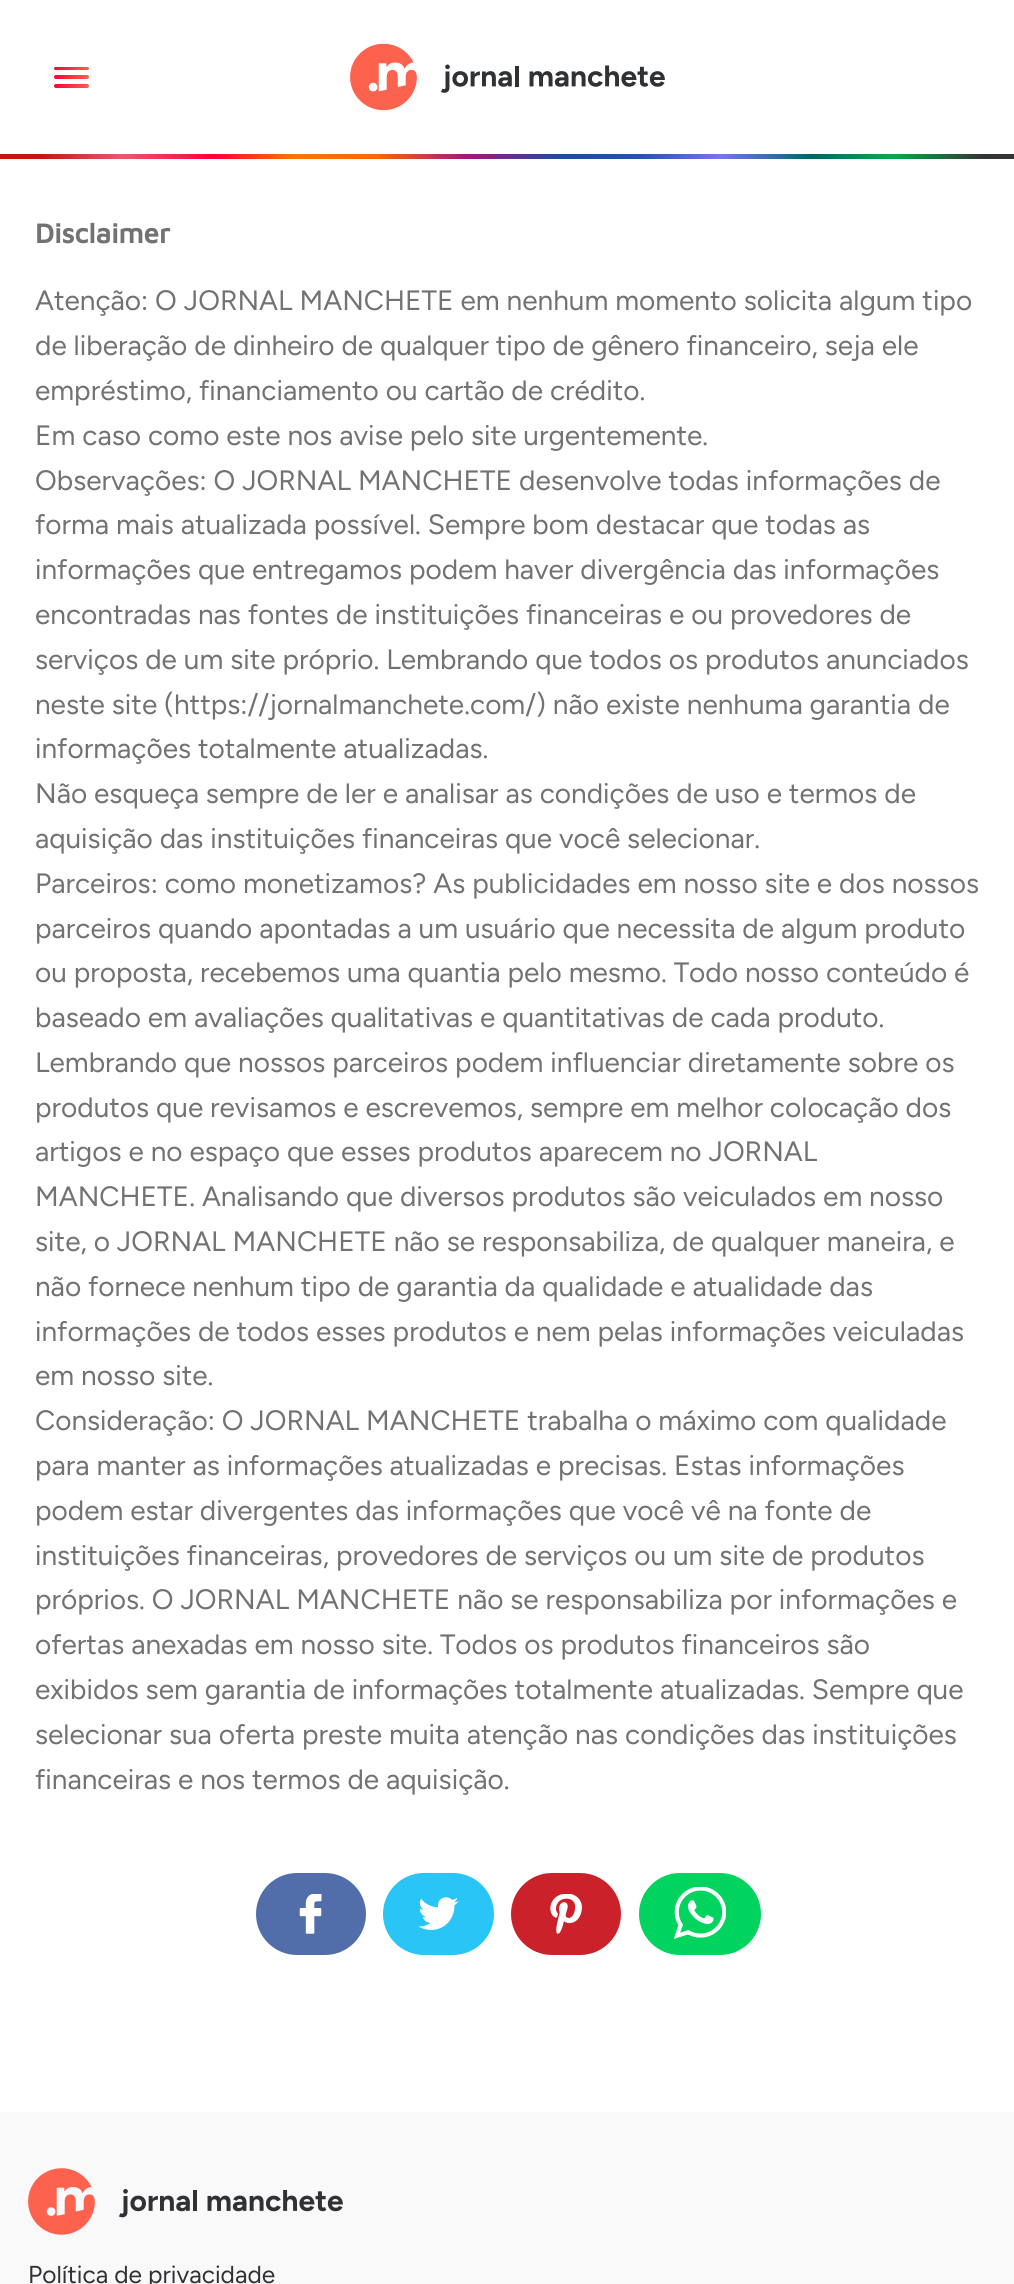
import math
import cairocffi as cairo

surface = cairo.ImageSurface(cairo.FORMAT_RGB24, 1014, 2284)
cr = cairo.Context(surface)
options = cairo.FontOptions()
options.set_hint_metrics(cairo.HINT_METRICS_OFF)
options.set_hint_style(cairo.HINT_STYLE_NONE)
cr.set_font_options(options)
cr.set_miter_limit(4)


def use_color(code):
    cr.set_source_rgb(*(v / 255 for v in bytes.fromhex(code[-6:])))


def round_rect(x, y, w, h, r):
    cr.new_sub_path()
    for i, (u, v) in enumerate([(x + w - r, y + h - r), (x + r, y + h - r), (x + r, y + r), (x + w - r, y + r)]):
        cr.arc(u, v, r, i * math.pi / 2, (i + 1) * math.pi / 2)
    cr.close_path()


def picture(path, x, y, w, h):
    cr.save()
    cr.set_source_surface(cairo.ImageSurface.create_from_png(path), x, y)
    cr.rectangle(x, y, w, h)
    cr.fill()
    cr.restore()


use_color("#ffffff")
cr.paint()
gradient = cairo.LinearGradient(89, 68, 54, 68)
gradient.add_color_stop_rgba(0, 0.988, 0.384, 0.302, 1)
gradient.add_color_stop_rgba(1, 0.984, 0.008, 0.204, 1)
cr.set_source(gradient)
round_rect(54, 67, 35, 3, 1.5)
cr.fill()
gradient = cairo.LinearGradient(89, 77, 54, 77)
gradient.add_color_stop_rgba(0, 0.988, 0.384, 0.302, 1)
gradient.add_color_stop_rgba(1, 0.984, 0.008, 0.204, 1)
cr.set_source(gradient)
round_rect(54, 75, 35, 4, 2)
cr.fill()
gradient = cairo.LinearGradient(89, 86, 54, 86)
gradient.add_color_stop_rgba(0, 0.988, 0.384, 0.302, 1)
gradient.add_color_stop_rgba(1, 0.984, 0.008, 0.204, 1)
cr.set_source(gradient)
round_rect(54, 84, 35, 4, 2)
cr.fill()
picture("img1.png", 350, 44, 315, 66)
gradient = cairo.LinearGradient(0, 157, 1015, 157)
gradient.add_color_stop_rgba(0.04, 0.769, 0.09, 0.047, 1)
gradient.add_color_stop_rgba(0.12, 0.922, 0.345, 0.435, 1)
gradient.add_color_stop_rgba(0.21, 0.984, 0.008, 0.204, 1)
gradient.add_color_stop_rgba(0.29, 1, 0.455, 0, 1)
gradient.add_color_stop_rgba(0.37, 1, 0.404, 0, 1)
gradient.add_color_stop_rgba(0.46, 0.647, 0.078, 0.49, 1)
gradient.add_color_stop_rgba(0.55, 0.118, 0.298, 0.604, 1)
gradient.add_color_stop_rgba(0.63, 0.145, 0.322, 0.675, 1)
gradient.add_color_stop_rgba(0.71, 0.471, 0.455, 0.949, 1)
gradient.add_color_stop_rgba(0.8, 0, 0.404, 0.404, 1)
gradient.add_color_stop_rgba(0.88, 0.024, 0.667, 0.282, 1)
gradient.add_color_stop_rgba(0.97, 0.2, 0.2, 0.2, 1)
cr.set_source(gradient)
cr.rectangle(0, 154, 1014, 5)
cr.fill()
cr.select_font_face("Maven Pro", cairo.FONT_SLANT_NORMAL, cairo.FONT_WEIGHT_BOLD)
cr.set_font_size(28)
use_color("#727272")
cr.move_to(35, 243)
cr.show_text("Disclaimer")
cr.select_font_face("Figtree")
cr.move_to(35, 310)
cr.show_text("Atenção: O JORNAL MANCHETE em nenhum momento solicita algum tipo")
cr.move_to(35, 355)
cr.show_text("de liberação de dinheiro de qualquer tipo de gênero financeiro, seja ele")
cr.move_to(35, 400)
cr.show_text("empréstimo, financiamento ou cartão de crédito.")
cr.move_to(35, 445)
cr.show_text("Em caso como este nos avise pelo site urgentemente.")
cr.move_to(35, 490)
cr.show_text("Observações: O JORNAL MANCHETE desenvolve todas informações de")
cr.move_to(35, 534)
cr.show_text("forma mais atualizada possível. Sempre bom destacar que todas as")
cr.move_to(35, 579)
cr.show_text("informações que entregamos podem haver divergência das informações")
cr.move_to(35, 624)
cr.show_text("encontradas nas fontes de instituições financeiras e ou provedores de")
cr.move_to(35, 669)
cr.show_text("serviços de um site próprio. Lembrando que todos os produtos anunciados")
cr.move_to(35, 714)
cr.show_text("neste site (https://jornalmanchete.com/) não existe nenhuma garantia de")
cr.move_to(35, 758)
cr.show_text("informações totalmente atualizadas.")
cr.move_to(35, 803)
cr.show_text("Não esqueça sempre de ler e analisar as condições de uso e termos de")
cr.move_to(35, 848)
cr.show_text("aquisição das instituições financeiras que você selecionar.")
cr.move_to(35, 893)
cr.show_text("Parceiros: como monetizamos? As publicidades em nosso site e dos nossos")
cr.move_to(35, 938)
cr.show_text("parceiros quando apontadas a um usuário que necessita de algum produto")
cr.move_to(35, 982)
cr.show_text("ou proposta, recebemos uma quantia pelo mesmo. Todo nosso conteúdo é")
cr.move_to(35, 1027)
cr.show_text("baseado em avaliações qualitativas e quantitativas de cada produto.")
cr.move_to(35, 1072)
cr.show_text("Lembrando que nossos parceiros podem influenciar diretamente sobre os")
cr.move_to(35, 1117)
cr.show_text("produtos que revisamos e escrevemos, sempre em melhor colocação dos")
cr.move_to(35, 1161)
cr.show_text("artigos e no espaço que esses produtos aparecem no JORNAL")
cr.move_to(35, 1206)
cr.show_text("MANCHETE. Analisando que diversos produtos são veiculados em nosso")
cr.move_to(35, 1251)
cr.show_text("site, o JORNAL MANCHETE não se responsabiliza, de qualquer maneira, e")
cr.move_to(35, 1296)
cr.show_text("não fornece nenhum tipo de garantia da qualidade e atualidade das")
cr.move_to(35, 1341)
cr.show_text("informações de todos esses produtos e nem pelas informações veiculadas")
cr.move_to(35, 1385)
cr.show_text("em nosso site.")
cr.move_to(35, 1430)
cr.show_text("Consideração: O JORNAL MANCHETE trabalha o máximo com qualidade")
cr.move_to(35, 1475)
cr.show_text("para manter as informações atualizadas e precisas. Estas informações")
cr.move_to(35, 1520)
cr.show_text("podem estar divergentes das informações que você vê na fonte de")
cr.move_to(35, 1565)
cr.show_text("instituições financeiras, provedores de serviços ou um site de produtos")
cr.move_to(35, 1609)
cr.show_text("próprios. O JORNAL MANCHETE não se responsabiliza por informações e")
cr.move_to(35, 1654)
cr.show_text("ofertas anexadas em nosso site. Todos os produtos financeiros são")
cr.move_to(35, 1699)
cr.show_text("exibidos sem garantia de informações totalmente atualizadas. Sempre que")
cr.move_to(35, 1744)
cr.show_text("selecionar sua oferta preste muita atenção nas condições das instituições")
cr.move_to(35, 1789)
cr.show_text("financeiras e nos termos de aquisição.")
use_color("#516eab")
round_rect(256, 1873, 110, 82, 41)
cr.fill()
picture("img2.png", 299, 1894, 23, 40)
use_color("#29c5f6")
round_rect(383, 1873, 111, 82, 41)
cr.fill()
picture("img3.png", 418, 1897, 41, 33)
use_color("#ca212a")
round_rect(511, 1873, 110, 82, 41)
cr.fill()
picture("img4.png", 550, 1894, 32, 40)
use_color("#00d45e")
round_rect(639, 1873, 122, 82, 41)
cr.fill()
picture("img5.png", 674, 1887, 52, 52)
use_color("#f9f9f9")
cr.rectangle(0, 2112, 1014, 172)
cr.fill()
picture("img6.png", 28, 2168, 315, 67)
cr.set_font_size(24.5)
use_color("#2f3134")
cr.move_to(28, 2283)
cr.show_text("Política de privacidade")
surface.write_to_png("result.png")
